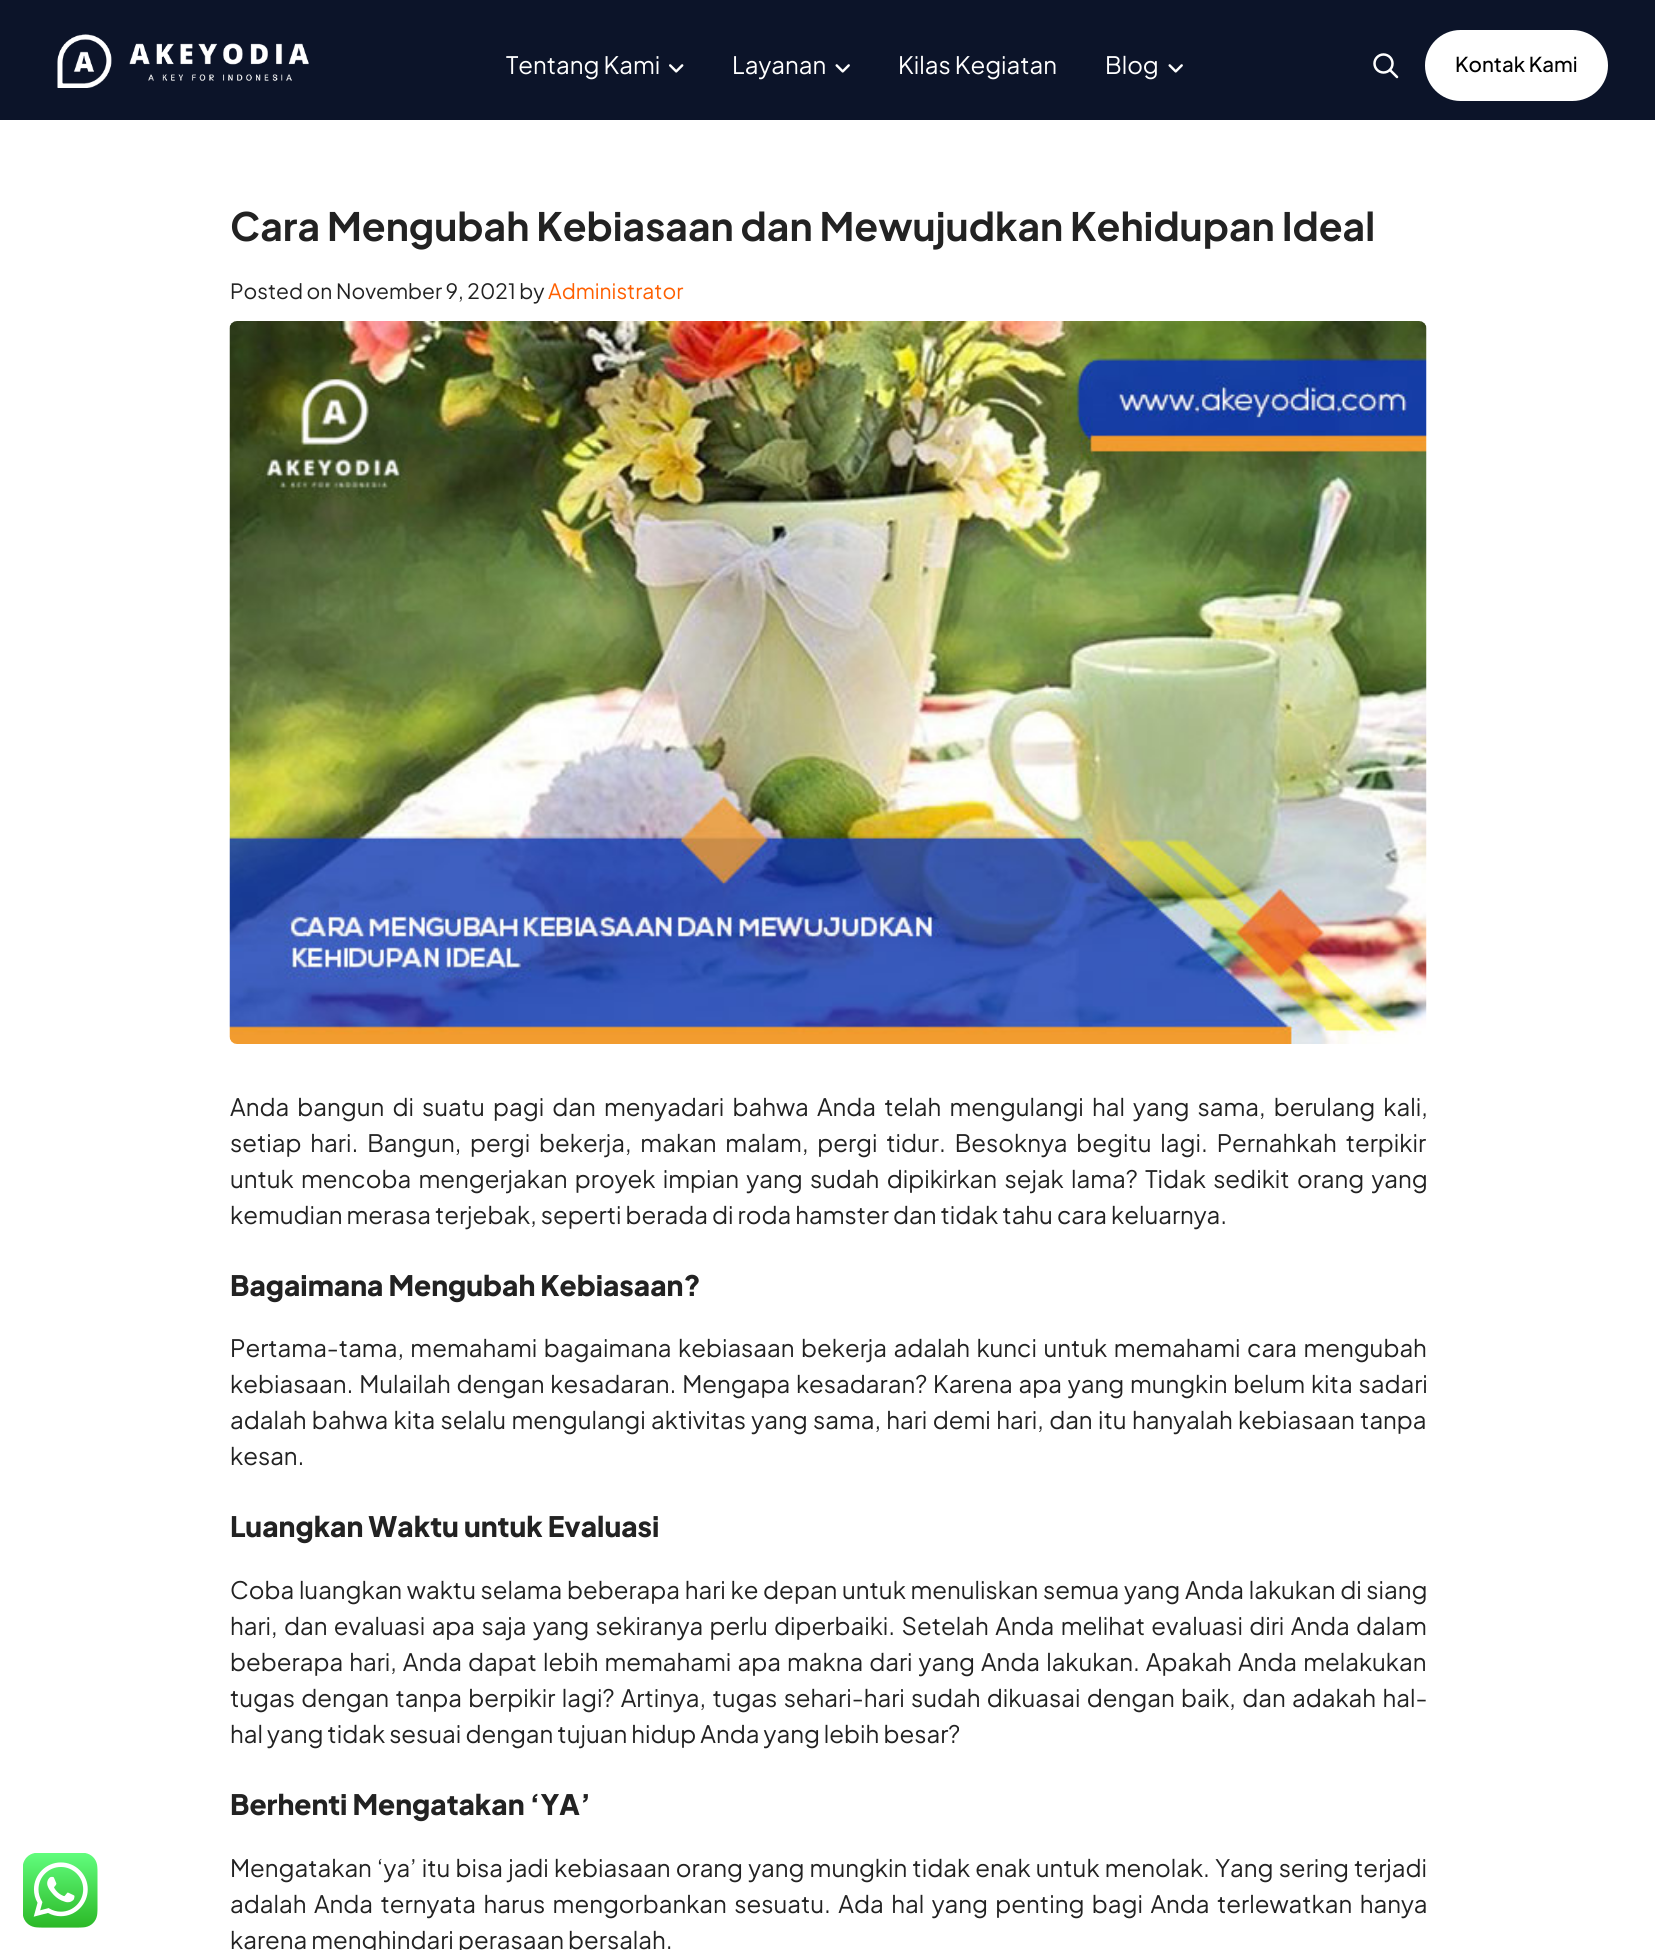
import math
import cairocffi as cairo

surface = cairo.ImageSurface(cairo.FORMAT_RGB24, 1655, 1950)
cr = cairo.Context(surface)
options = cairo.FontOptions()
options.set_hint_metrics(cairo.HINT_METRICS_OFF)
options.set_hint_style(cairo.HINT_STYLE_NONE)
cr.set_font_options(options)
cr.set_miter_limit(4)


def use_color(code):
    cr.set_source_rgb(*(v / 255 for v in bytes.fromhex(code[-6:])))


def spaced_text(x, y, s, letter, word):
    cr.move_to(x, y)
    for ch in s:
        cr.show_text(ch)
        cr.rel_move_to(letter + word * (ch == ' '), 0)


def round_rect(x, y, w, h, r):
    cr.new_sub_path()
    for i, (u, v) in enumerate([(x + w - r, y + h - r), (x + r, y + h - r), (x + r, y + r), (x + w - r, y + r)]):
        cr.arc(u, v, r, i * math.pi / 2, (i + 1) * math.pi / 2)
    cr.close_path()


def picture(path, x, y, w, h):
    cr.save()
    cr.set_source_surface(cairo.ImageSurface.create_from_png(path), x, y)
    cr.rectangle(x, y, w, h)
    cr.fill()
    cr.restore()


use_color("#ffffff")
cr.paint()
use_color("#0c1429")
cr.rectangle(0, 0, 1655, 120)
cr.fill()
picture("img1.png", 57, 34, 252, 54)
cr.select_font_face("Plus Jakarta Sans")
cr.set_font_size(24)
use_color("#ffffff")
cr.move_to(506, 74)
cr.show_text("Tentang Kami")
picture("img2.png", 669, 64, 15, 9)
cr.move_to(732, 74)
cr.show_text("Layanan")
picture("img3.png", 835, 64, 15, 9)
cr.move_to(898, 74)
cr.show_text("Kilas Kegiatan")
cr.move_to(1105, 74)
cr.show_text("Blog")
picture("img3.png", 1168, 64, 15, 9)
cr.arc(1383.5, 63.5, 9, 0, 2 * math.pi)
cr.set_line_width(2.5)
cr.stroke()
cr.new_path()
cr.move_to(1390, 70)
cr.line_to(1397, 77)
cr.set_line_cap(cairo.LINE_CAP_ROUND)
cr.set_line_join(cairo.LINE_JOIN_ROUND)
cr.stroke()
round_rect(1425, 30, 183, 71, 35.5)
cr.fill()
cr.select_font_face("Plus Jakarta Sans Medium")
cr.set_font_size(20.5)
use_color("#000000")
cr.move_to(1455, 72)
cr.show_text("Kontak Kami")
picture("img4.png", 23, 1853, 75, 75)
cr.select_font_face("Plus Jakarta Sans", cairo.FONT_SLANT_NORMAL, cairo.FONT_WEIGHT_BOLD)
cr.set_font_size(39)
use_color("#222222")
cr.move_to(230, 241)
cr.show_text("Cara Mengubah Kebiasaan dan Mewujudkan Kehidupan Ideal")
cr.select_font_face("Plus Jakarta Sans")
cr.set_font_size(21)
cr.move_to(230, 299)
cr.show_text("Posted on November 9, 2021 by")
use_color("#ff5f00")
cr.move_to(548, 299)
cr.show_text("Administrator")
picture("img5.png", 229, 321, 1198, 723)
cr.set_font_size(24)
use_color("#222222")
spaced_text(230, 1116, "Anda bangun di suatu pagi dan menyadari bahwa Anda telah mengulangi hal yang sama, berulang kali,", 0, 4.1)
spaced_text(230, 1152, "setiap hari. Bangun, pergi bekerja, makan malam, pergi tidur. Besoknya begitu lagi. Pernahkah terpikir", 0, 4.75)
spaced_text(230, 1188, "untuk mencoba mengerjakan proyek impian yang sudah dipikirkan sejak lama? Tidak sedikit orang yang", 0, 3.25)
cr.move_to(230, 1224)
cr.show_text("kemudian merasa terjebak, seperti berada di roda hamster dan tidak tahu cara keluarnya.")
cr.select_font_face("Plus Jakarta Sans ExtraBold")
cr.set_font_size(28.1)
cr.move_to(230, 1296)
cr.show_text("Bagaimana Mengubah Kebiasaan?")
cr.select_font_face("Plus Jakarta Sans")
cr.set_font_size(24)
spaced_text(230, 1357, "Pertama-tama, memahami bagaimana kebiasaan bekerja adalah kunci untuk memahami cara mengubah", 0, 2.4)
spaced_text(230, 1393, "kebiasaan. Mulailah dengan kesadaran. Mengapa kesadaran? Karena apa yang mungkin belum kita sadari", 0, 1.75)
spaced_text(230, 1429, "adalah bahwa kita selalu mengulangi aktivitas yang sama, hari demi hari, dan itu hanyalah kebiasaan tanpa", 0, 1.3)
cr.move_to(230, 1465)
cr.show_text("kesan.")
cr.select_font_face("Plus Jakarta Sans ExtraBold")
cr.set_font_size(28.1)
cr.move_to(230, 1537)
cr.show_text("Luangkan Waktu untuk Evaluasi")
cr.select_font_face("Plus Jakarta Sans")
cr.set_font_size(24)
spaced_text(230, 1599, "Coba luangkan waktu selama beberapa hari ke depan untuk menuliskan semua yang Anda lakukan di siang", 0, 0.6)
spaced_text(230, 1635, "hari, dan evaluasi apa saja yang sekiranya perlu diperbaiki. Setelah Anda melihat evaluasi diri Anda dalam", 0, 2.25)
spaced_text(230, 1671, "beberapa hari, Anda dapat lebih memahami apa makna dari yang Anda lakukan. Apakah Anda melakukan", 0, 2)
spaced_text(230, 1707, "tugas dengan tanpa berpikir lagi? Artinya, tugas sehari-hari sudah dikuasai dengan baik, dan adakah hal-", 0, 2.25)
cr.move_to(230, 1743)
cr.show_text("hal yang tidak sesuai dengan tujuan hidup Anda yang lebih besar?")
cr.select_font_face("Plus Jakarta Sans ExtraBold")
cr.set_font_size(28.1)
cr.move_to(230, 1815)
cr.show_text("Berhenti Mengatakan ‘YA’")
cr.select_font_face("Plus Jakarta Sans")
cr.set_font_size(24)
spaced_text(230, 1877, "Mengatakan ‘ya’ itu bisa jadi kebiasaan orang yang mungkin tidak enak untuk menolak. Yang sering terjadi", 0, 1.1)
spaced_text(230, 1913, "adalah Anda ternyata harus mengorbankan sesuatu. Ada hal yang penting bagi Anda terlewatkan hanya", 0, 3.4)
cr.move_to(230, 1949)
cr.show_text("karena menghindari perasaan bersalah.")
surface.write_to_png("result.png")
